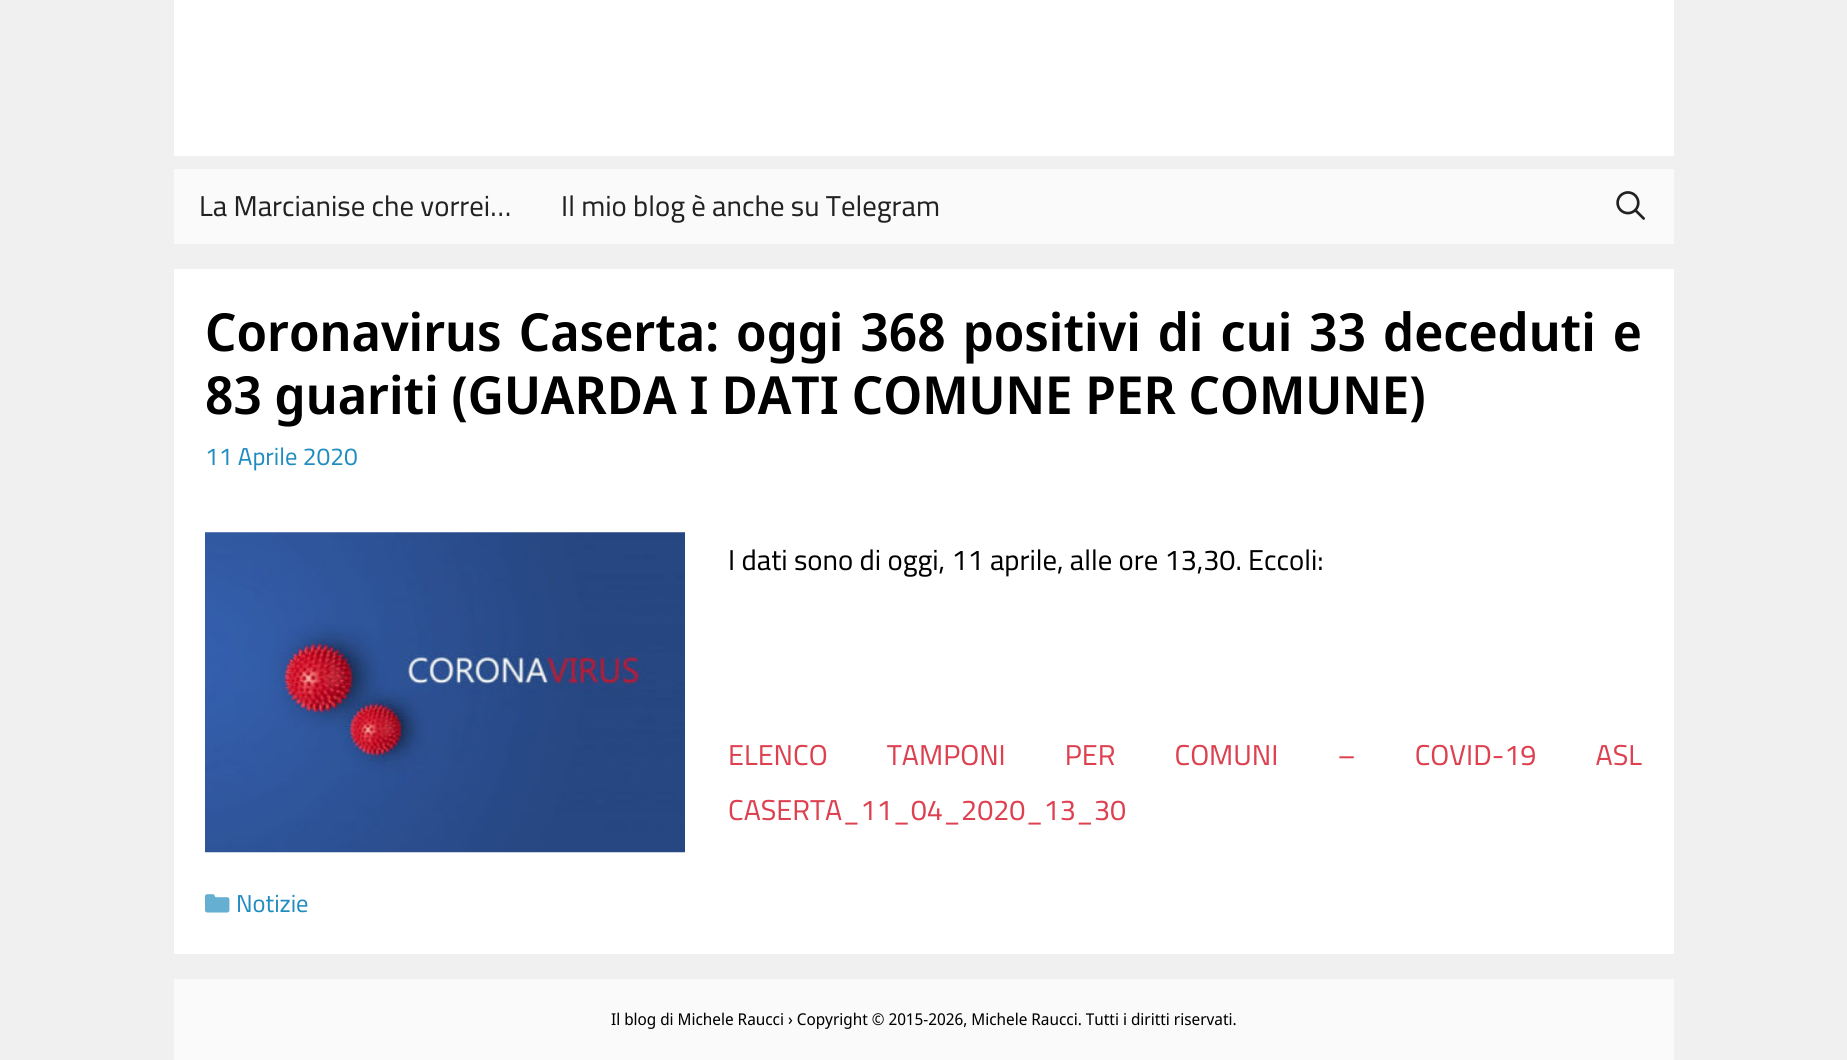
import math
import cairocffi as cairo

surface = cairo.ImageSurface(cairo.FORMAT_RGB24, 1847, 1060)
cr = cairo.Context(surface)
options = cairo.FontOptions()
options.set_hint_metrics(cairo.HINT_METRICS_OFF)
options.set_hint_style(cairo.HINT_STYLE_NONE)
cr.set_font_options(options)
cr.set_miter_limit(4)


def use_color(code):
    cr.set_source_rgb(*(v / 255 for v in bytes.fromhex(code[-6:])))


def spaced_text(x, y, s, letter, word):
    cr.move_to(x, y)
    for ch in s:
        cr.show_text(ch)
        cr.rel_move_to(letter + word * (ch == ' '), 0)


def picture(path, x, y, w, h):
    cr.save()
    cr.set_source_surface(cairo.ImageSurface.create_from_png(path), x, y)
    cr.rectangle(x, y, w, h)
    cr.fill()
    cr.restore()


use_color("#f0f0f0")
cr.paint()
use_color("#ffffff")
cr.rectangle(174, 0, 1500, 156)
cr.fill()
use_color("#fafafa")
cr.rectangle(174, 169, 1500, 75)
cr.fill()
cr.select_font_face("Cairo")
cr.set_font_size(28.75)
use_color("#222222")
cr.move_to(199, 216)
cr.show_text("La Marcianise che vorrei…")
cr.move_to(561, 216)
cr.show_text("Il mio blog è anche su Telegram")
picture("img1.png", 1616, 191, 29, 29)
use_color("#ffffff")
cr.rectangle(174, 269, 1500, 685)
cr.fill()
cr.select_font_face("Noto Sans Display SemiBold")
cr.set_font_size(52.5)
use_color("#000000")
spaced_text(205, 351, "Coronavirus Caserta: oggi 368 positivi di cui 33 deceduti e", 0, 4.25)
cr.move_to(205, 414)
cr.show_text("83 guariti (GUARDA I DATI COMUNE PER COMUNE)")
cr.select_font_face("Cairo")
cr.set_font_size(24.5)
use_color("#218cbf")
cr.move_to(205, 465)
cr.show_text("11 Aprile 2020")
picture("img2.png", 205, 532, 480, 321)
cr.set_font_size(28.75)
use_color("#000000")
cr.move_to(728, 570)
cr.show_text("I dati sono di oggi, 11 aprile, alle ore 13,30. Eccoli:")
use_color("#dd404f")
spaced_text(728, 765, "ELENCO TAMPONI PER COMUNI – COVID-19 ASL", 0, 52.75)
cr.move_to(728, 820)
cr.show_text("CASERTA_11_04_2020_13_30")
picture("img3.png", 205, 894, 25, 19)
cr.set_font_size(24.5)
use_color("#218cbf")
cr.move_to(236, 912)
cr.show_text("Notizie")
use_color("#fafafa")
cr.rectangle(174, 979, 1500, 81)
cr.fill()
cr.select_font_face("Noto Sans Display")
cr.set_font_size(16.25)
use_color("#000000")
cr.move_to(611, 1025)
cr.show_text("Il blog di Michele Raucci › Copyright © 2015-2026, Michele Raucci. Tutti i diritti riservati.")
surface.write_to_png("result.png")
